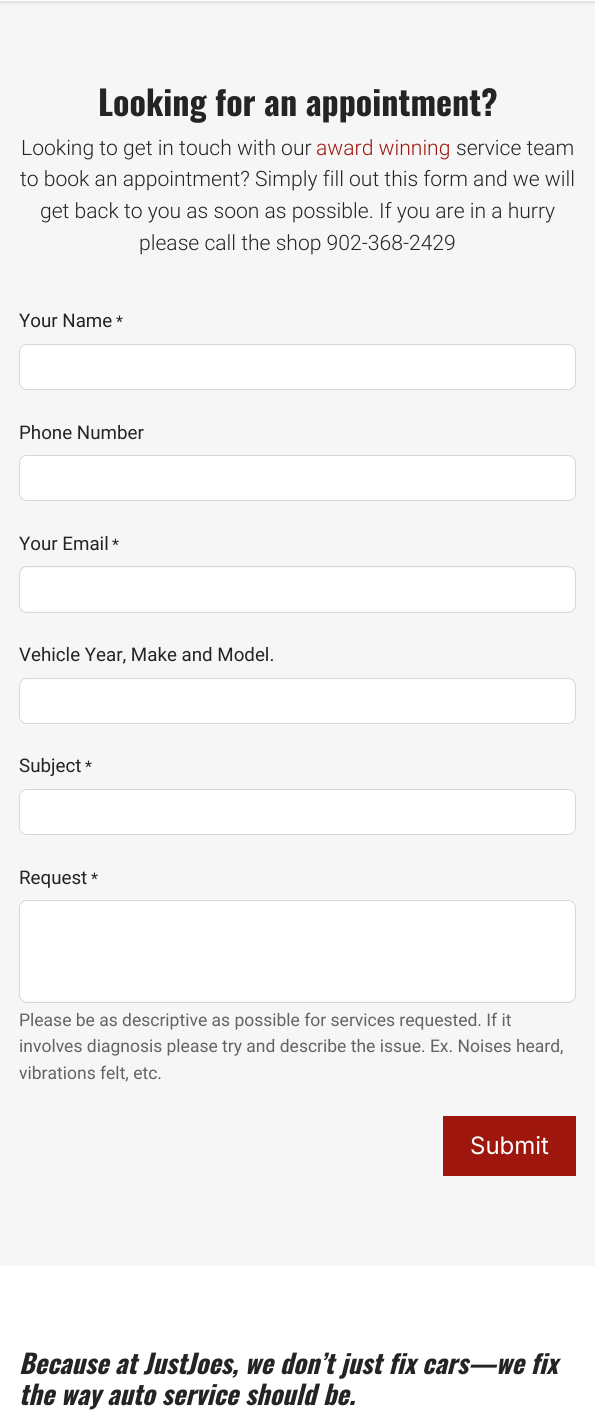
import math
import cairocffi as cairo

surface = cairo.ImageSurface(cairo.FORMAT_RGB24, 595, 1427)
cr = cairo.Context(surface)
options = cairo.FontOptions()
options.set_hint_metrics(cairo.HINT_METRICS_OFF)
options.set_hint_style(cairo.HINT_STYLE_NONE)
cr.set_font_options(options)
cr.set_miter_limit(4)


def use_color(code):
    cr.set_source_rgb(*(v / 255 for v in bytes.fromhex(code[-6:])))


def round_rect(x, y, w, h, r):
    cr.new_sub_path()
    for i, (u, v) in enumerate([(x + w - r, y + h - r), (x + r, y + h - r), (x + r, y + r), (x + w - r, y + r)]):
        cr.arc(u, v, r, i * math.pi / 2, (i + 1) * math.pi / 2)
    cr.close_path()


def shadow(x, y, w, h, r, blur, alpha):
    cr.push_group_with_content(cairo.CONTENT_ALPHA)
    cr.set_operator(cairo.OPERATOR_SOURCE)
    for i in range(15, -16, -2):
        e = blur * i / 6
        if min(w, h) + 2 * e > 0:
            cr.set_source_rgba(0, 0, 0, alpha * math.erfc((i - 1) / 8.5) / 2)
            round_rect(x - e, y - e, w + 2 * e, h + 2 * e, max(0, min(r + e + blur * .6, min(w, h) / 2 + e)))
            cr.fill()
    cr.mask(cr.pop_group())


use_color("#ffffff")
cr.paint()
use_color("#f7f6f6")
cr.rectangle(0, 1, 595, 1265)
cr.fill()
cr.save()
cr.rectangle(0, 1, 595, 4)
cr.clip()
use_color("#000000")
shadow(0, -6, 595, 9, 0, 2, 0.1)
cr.restore()
cr.select_font_face("Oswald", cairo.FONT_SLANT_NORMAL, cairo.FONT_WEIGHT_BOLD)
cr.set_font_size(34)
use_color("#242424")
cr.move_to(98, 116)
cr.show_text("Looking for an appointment?")
cr.select_font_face("Roboto Light")
cr.set_font_size(21.1)
cr.move_to(21, 155)
cr.show_text("Looking to get in touch with our")
use_color("#9e160d")
cr.move_to(316, 155)
cr.show_text("award winning")
use_color("#242424")
cr.move_to(456, 155)
cr.show_text("service team")
cr.move_to(20, 186)
cr.show_text("to book an appointment? Simply fill out this form and we will")
cr.move_to(40, 218)
cr.show_text("get back to you as soon as possible. If you are in a hurry")
cr.move_to(139, 250)
cr.show_text("please call the shop 902-368-2429")
cr.select_font_face("Roboto")
cr.set_font_size(18.75)
cr.move_to(19, 327)
cr.show_text("Your Name")
cr.set_font_size(16)
cr.move_to(116, 327)
cr.show_text("*")
use_color("#ffffff")
round_rect(20, 345, 555, 44, 6)
cr.fill()
round_rect(19.5, 344.5, 556, 45, 7.5)
cr.set_source_rgba(0.129, 0.145, 0.161, 0.15)
cr.set_line_width(1)
cr.stroke()
cr.set_font_size(18.75)
use_color("#242424")
cr.move_to(19, 439)
cr.show_text("Phone Number")
use_color("#ffffff")
round_rect(20, 456, 555, 44, 6)
cr.fill()
round_rect(19.5, 455.5, 556, 45, 7.5)
cr.set_source_rgba(0.129, 0.145, 0.161, 0.15)
cr.stroke()
use_color("#242424")
cr.move_to(19, 550)
cr.show_text("Your Email")
cr.set_font_size(16)
cr.move_to(112, 550)
cr.show_text("*")
use_color("#ffffff")
round_rect(20, 568, 555, 43, 6)
cr.fill()
round_rect(19.5, 566.5, 556, 46, 7.5)
use_color("#d7d7d7")
cr.stroke()
cr.set_font_size(18.75)
use_color("#242424")
cr.move_to(19, 661)
cr.show_text("Vehicle Year, Make and Model.")
use_color("#ffffff")
round_rect(20, 679, 555, 44, 6)
cr.fill()
round_rect(19.5, 678.5, 556, 45, 7.5)
cr.set_source_rgba(0.129, 0.145, 0.161, 0.15)
cr.stroke()
use_color("#242424")
cr.move_to(19, 772)
cr.show_text("Subject")
cr.set_font_size(16)
cr.move_to(85, 772)
cr.show_text("*")
use_color("#ffffff")
round_rect(20, 790, 555, 44, 6)
cr.fill()
round_rect(19.5, 789.5, 556, 45, 7.5)
cr.set_source_rgba(0.129, 0.145, 0.161, 0.15)
cr.stroke()
cr.set_font_size(18.75)
use_color("#242424")
cr.move_to(19, 884)
cr.show_text("Request")
cr.set_font_size(16)
cr.move_to(91, 884)
cr.show_text("*")
use_color("#ffffff")
round_rect(20, 901, 555, 100, 6)
cr.fill()
round_rect(19.5, 900.5, 556, 102, 7.5)
cr.set_source_rgba(0.129, 0.145, 0.161, 0.15)
cr.stroke()
cr.set_font_size(17.5)
use_color("#616467")
cr.move_to(19, 1026)
cr.show_text("Please be as descriptive as possible for services requested. If it")
cr.move_to(19, 1052)
cr.show_text("involves diagnosis please try and describe the issue. Ex. Noises heard,")
cr.move_to(19, 1079)
cr.show_text("vibrations felt, etc.")
use_color("#9e160d")
cr.rectangle(444.5, 1117.5, 130, 57)
cr.fill_preserve()
cr.set_line_width(3)
cr.stroke()
cr.select_font_face("Inter")
cr.set_font_size(24)
use_color("#ffffff")
cr.move_to(470, 1154)
cr.show_text("Submit")
cr.select_font_face("Oswald", cairo.FONT_SLANT_ITALIC, cairo.FONT_WEIGHT_BOLD)
cr.set_font_size(26.4)
use_color("#242424")
cr.move_to(19, 1374)
cr.show_text("Because at JustJoes, we don’t just fix cars—we fix")
cr.move_to(19, 1405)
cr.show_text("the way auto service should be.")
surface.write_to_png("result.png")
